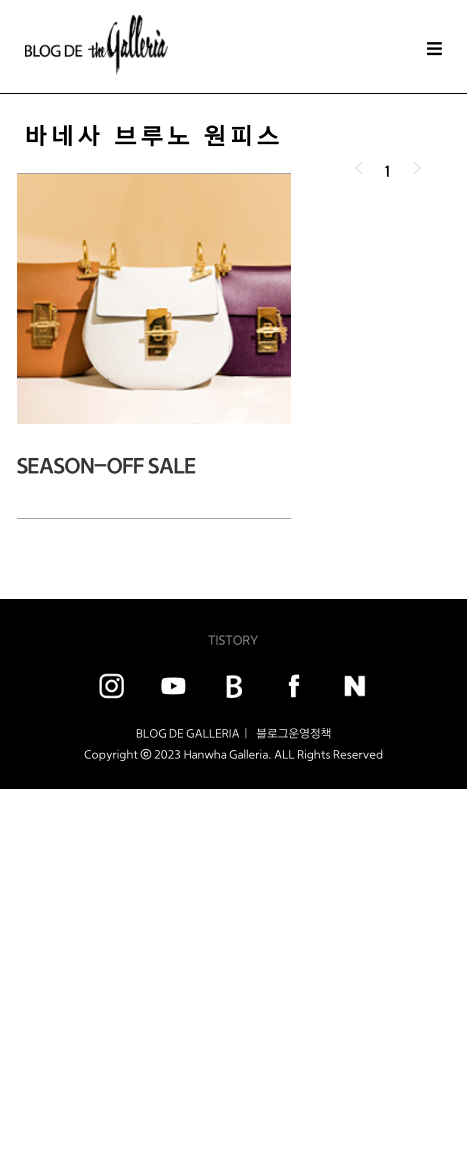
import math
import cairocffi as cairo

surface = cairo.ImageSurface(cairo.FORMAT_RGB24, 467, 1151)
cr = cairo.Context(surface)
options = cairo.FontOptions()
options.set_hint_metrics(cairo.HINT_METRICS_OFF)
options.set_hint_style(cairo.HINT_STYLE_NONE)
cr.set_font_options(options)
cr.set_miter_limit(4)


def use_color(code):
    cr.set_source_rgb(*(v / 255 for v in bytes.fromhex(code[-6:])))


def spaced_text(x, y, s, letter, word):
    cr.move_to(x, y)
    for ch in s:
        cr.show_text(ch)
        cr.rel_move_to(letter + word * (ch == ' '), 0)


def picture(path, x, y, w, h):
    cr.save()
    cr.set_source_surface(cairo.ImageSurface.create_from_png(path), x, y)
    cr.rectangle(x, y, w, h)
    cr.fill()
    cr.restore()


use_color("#ffffff")
cr.paint()
use_color("#000000")
cr.rectangle(0, 93, 467, 1)
cr.fill()
picture("img1.png", 25, 14, 143, 61)
picture("img2.png", 427, 42, 15, 14)
cr.select_font_face("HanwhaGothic", cairo.FONT_SLANT_NORMAL, cairo.FONT_WEIGHT_BOLD)
cr.set_font_size(24)
spaced_text(25, 143, "바네사 브루노 원피스", 5, 0)
use_color("#a2a2a2")
cr.rectangle(17, 173, 274, 1)
cr.fill()
cr.rectangle(17, 518, 274, 1)
cr.fill()
picture("img3.png", 17, 174, 274, 250)
cr.set_font_size(21)
use_color("#333333")
cr.move_to(17, 472)
cr.show_text("SEASON-OFF SALE")
picture("img4.png", 355, 162, 7, 12)
cr.select_font_face("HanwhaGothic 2", cairo.FONT_SLANT_NORMAL, cairo.FONT_WEIGHT_BOLD)
cr.set_font_size(15)
use_color("#000000")
cr.move_to(383, 176)
cr.show_text("1")
picture("img5.png", 414, 162, 7, 12)
cr.rectangle(0, 599, 467, 190)
cr.fill()
cr.select_font_face("HanwhaGothic Light")
cr.set_font_size(13)
use_color("#858585")
cr.move_to(208, 644)
cr.show_text("TISTORY")
picture("img6.png", 99, 673, 25, 26)
picture("img7.png", 161, 677, 25, 18)
picture("img8.png", 226, 675, 16, 23)
picture("img9.png", 288, 674, 12, 24)
picture("img10.png", 344, 675, 22, 22)
cr.select_font_face("HanwhaGothic ExtraLight")
cr.set_font_size(12)
use_color("#ffffff")
cr.move_to(136, 737)
cr.show_text("BLOG DE GALLERIA  |")
cr.move_to(256, 737)
cr.show_text("블로그운영정책")
cr.move_to(84, 758)
cr.show_text("Copyright © 2023 Hanwha Galleria. ALL Rights Reserved")
surface.write_to_png("result.png")
